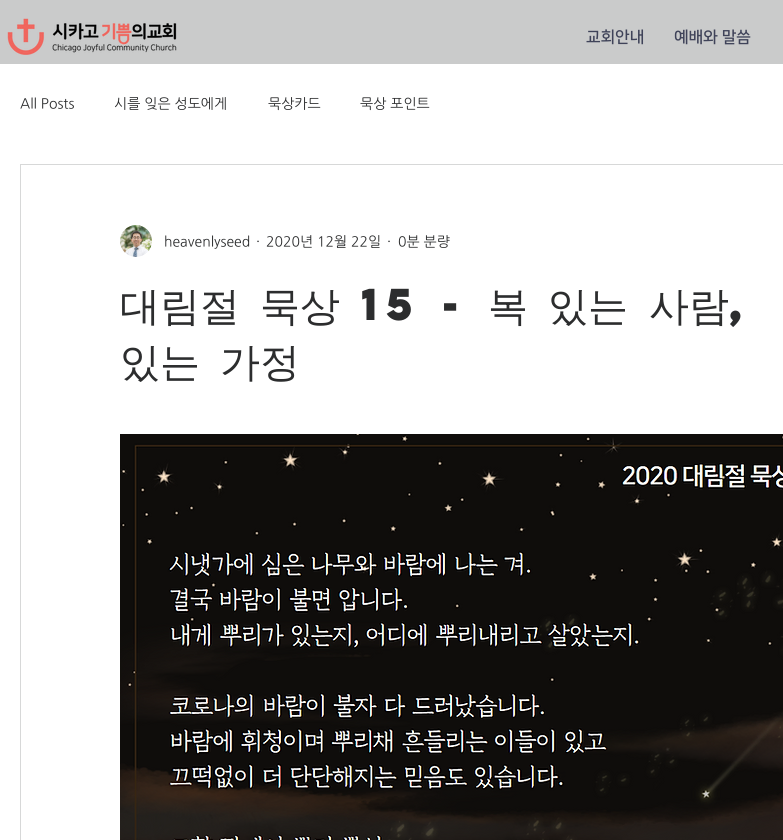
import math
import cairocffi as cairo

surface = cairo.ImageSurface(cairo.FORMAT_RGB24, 783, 840)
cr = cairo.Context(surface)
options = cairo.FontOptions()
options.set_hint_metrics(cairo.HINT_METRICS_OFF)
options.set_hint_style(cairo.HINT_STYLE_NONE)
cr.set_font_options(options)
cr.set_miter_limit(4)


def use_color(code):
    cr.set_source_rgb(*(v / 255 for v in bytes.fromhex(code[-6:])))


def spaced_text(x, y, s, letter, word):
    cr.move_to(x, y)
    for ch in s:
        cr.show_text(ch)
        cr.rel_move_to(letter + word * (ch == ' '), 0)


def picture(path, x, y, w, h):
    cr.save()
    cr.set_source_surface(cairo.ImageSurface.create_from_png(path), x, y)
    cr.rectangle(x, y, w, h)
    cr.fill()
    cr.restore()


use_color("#cacbcb")
cr.paint()
picture("img1.png", 7, 18, 170, 37)
cr.select_font_face("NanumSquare", cairo.FONT_SLANT_NORMAL, cairo.FONT_WEIGHT_BOLD)
cr.set_font_size(16)
use_color("#3f4359")
cr.move_to(586, 42)
cr.show_text("교회안내")
cr.move_to(674, 42)
cr.show_text("예배와 말씀")
use_color("#ffffff")
cr.rectangle(0, 64, 783, 776)
cr.fill()
cr.select_font_face("NanumGothic")
cr.set_font_size(14)
use_color("#2c2d2e")
cr.move_to(20, 108)
cr.show_text("All Posts")
cr.move_to(114, 108)
cr.show_text("시를 잊은 성도에게")
cr.move_to(268, 108)
cr.show_text("묵상카드")
cr.move_to(360, 108)
cr.show_text("묵상 포인트")
cr.rectangle(20.5, 164.5, 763, 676)
use_color("#d7d8d8")
cr.set_line_width(1)
cr.stroke()
picture("img2.png", 120, 225, 32, 32)
use_color("#2c2d2e")
cr.move_to(164, 246)
cr.show_text("heavenlyseed")
cr.move_to(256, 246)
cr.show_text("·")
cr.move_to(266, 246)
cr.show_text("2020년 12월 22일")
cr.move_to(387, 246)
cr.show_text("·")
cr.move_to(398, 246)
cr.show_text("0분 분량")
cr.select_font_face("WenQuanYi Zen Hei Medium")
cr.set_font_size(40)
cr.move_to(120, 320)
cr.show_text("대림절")
cr.move_to(260, 320)
cr.show_text("묵상")
cr.select_font_face("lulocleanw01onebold", cairo.FONT_SLANT_NORMAL, cairo.FONT_WEIGHT_BOLD)
cr.move_to(361, 320)
cr.show_text("15 -")
cr.select_font_face("WenQuanYi Zen Hei Medium")
cr.move_to(488, 320)
cr.show_text("복")
cr.move_to(548, 320)
cr.show_text("있는")
cr.move_to(649, 320)
cr.show_text("사람")
cr.select_font_face("lulocleanw01onebold", cairo.FONT_SLANT_NORMAL, cairo.FONT_WEIGHT_BOLD)
cr.move_to(729, 320)
cr.show_text(",")
cr.select_font_face("WenQuanYi Zen Hei Medium")
spaced_text(120, 376, "있는 가정", 0, 8)
picture("img3.png", 120, 434, 663, 406)
surface.write_to_png("result.png")
